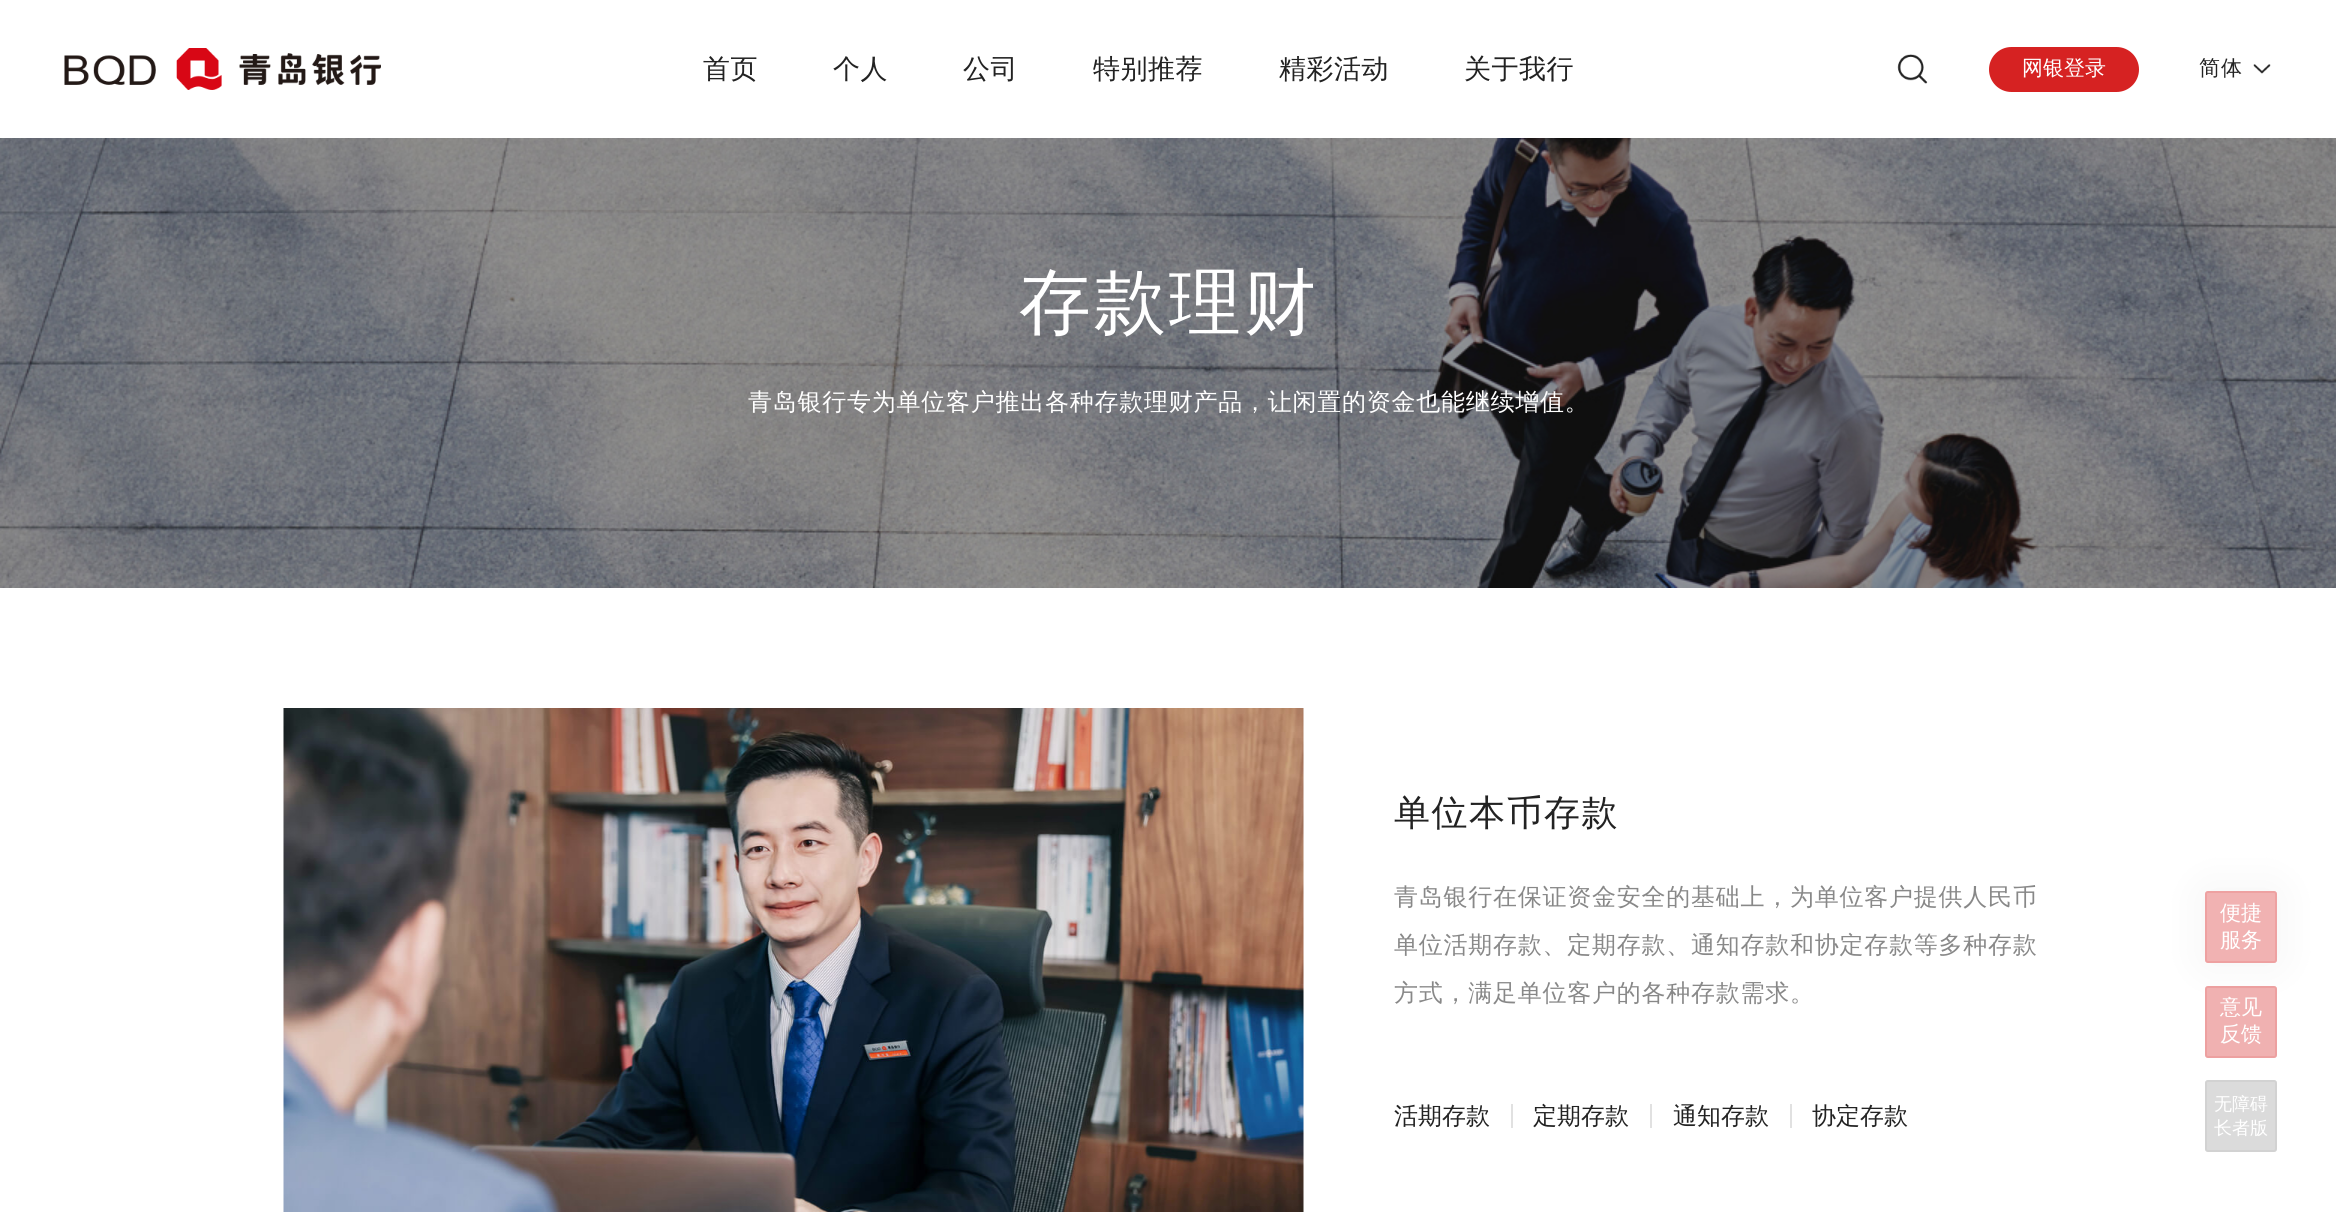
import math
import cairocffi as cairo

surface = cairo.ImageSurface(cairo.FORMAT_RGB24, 2336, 1212)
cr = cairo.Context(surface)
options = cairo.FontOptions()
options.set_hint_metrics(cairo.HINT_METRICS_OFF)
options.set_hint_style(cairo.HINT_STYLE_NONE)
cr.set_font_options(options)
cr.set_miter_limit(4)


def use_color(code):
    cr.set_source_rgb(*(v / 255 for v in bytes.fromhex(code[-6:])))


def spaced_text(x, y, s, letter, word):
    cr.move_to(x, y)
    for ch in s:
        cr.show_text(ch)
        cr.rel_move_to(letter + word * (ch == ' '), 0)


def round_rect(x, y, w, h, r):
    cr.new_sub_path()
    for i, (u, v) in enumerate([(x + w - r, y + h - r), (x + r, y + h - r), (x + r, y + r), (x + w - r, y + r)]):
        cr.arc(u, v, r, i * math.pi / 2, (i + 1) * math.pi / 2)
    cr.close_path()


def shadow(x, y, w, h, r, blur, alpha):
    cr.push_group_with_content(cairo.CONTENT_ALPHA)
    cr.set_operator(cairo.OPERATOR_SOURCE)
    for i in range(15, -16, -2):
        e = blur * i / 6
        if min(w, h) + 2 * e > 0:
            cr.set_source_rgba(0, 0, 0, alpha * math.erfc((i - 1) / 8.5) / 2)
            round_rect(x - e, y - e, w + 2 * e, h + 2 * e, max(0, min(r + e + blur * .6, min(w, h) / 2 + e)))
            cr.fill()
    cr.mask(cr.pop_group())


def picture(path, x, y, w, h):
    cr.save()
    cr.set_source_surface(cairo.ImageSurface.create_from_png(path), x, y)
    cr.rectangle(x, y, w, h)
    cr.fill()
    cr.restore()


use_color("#ffffff")
cr.paint()
picture("img1.png", 64, 48, 317, 42)
cr.select_font_face("WenQuanYi Zen Hei Medium")
cr.set_font_size(27)
use_color("#222222")
spaced_text(703, 78, "首页", 0.5, 0)
spaced_text(833, 78, "个人", 0.5, 0)
spaced_text(963, 78, "公司", 0.5, 0)
spaced_text(1093, 78, "特别推荐", 0.5, 0)
spaced_text(1279, 78, "精彩活动", 0.5, 0)
spaced_text(1464, 78, "关于我行", 0.5, 0)
picture("img2.png", 1897, 54, 31, 30)
use_color("#d62222")
round_rect(1989, 47, 150, 45, 22.5)
cr.fill()
cr.set_font_size(21)
use_color("#ffffff")
cr.move_to(2022, 75)
cr.show_text("网银登录")
use_color("#222222")
spaced_text(2199, 75, "简体", 1, 0)
picture("img3.png", 2253, 64, 18, 10)
picture("img4.png", 0, 138, 2336, 450)
cr.set_font_size(72)
use_color("#ffffff")
spaced_text(1019, 327, "存款理财", 3, 0)
cr.set_font_size(24)
spaced_text(748, 410, "青岛银行专为单位客户推出各种存款理财产品，让闲置的资金也能继续增值。", 0.75, 0)
picture("img5.png", 283, 708, 1021, 504)
cr.set_font_size(36)
use_color("#222222")
spaced_text(1394, 825, "单位本币存款", 1.5, 0)
cr.set_font_size(24)
use_color("#888888")
spaced_text(1394, 905, "青岛银行在保证资金安全的基础上，为单位客户提供人民币", 0.75, 0)
spaced_text(1394, 953, "单位活期存款、定期存款、通知存款和协定存款等多种存款", 0.75, 0)
spaced_text(1394, 1001, "方式，满足单位客户的各种存款需求。", 0.75, 0)
use_color("#222222")
cr.move_to(1394, 1124)
cr.show_text("活期存款")
use_color("#e1e1e1")
cr.rectangle(1511, 1104, 2, 24)
cr.fill()
use_color("#222222")
cr.move_to(1533, 1124)
cr.show_text("定期存款")
use_color("#e1e1e1")
cr.rectangle(1650, 1104, 2, 24)
cr.fill()
use_color("#222222")
cr.move_to(1673, 1124)
cr.show_text("通知存款")
use_color("#e1e1e1")
cr.rectangle(1790, 1104, 2, 24)
cr.fill()
use_color("#222222")
cr.move_to(1812, 1124)
cr.show_text("协定存款")
use_color("#808080")
shadow(2205, 891, 72, 72, 3, 22.5, 0.1)
use_color("#f1b2b2")
round_rect(2205, 891, 72, 72, 3)
cr.fill()
round_rect(2206, 892, 70, 70, 2)
cr.set_source_rgba(0.922, 0.569, 0.569, 0.5)
cr.stroke()
cr.set_font_size(21)
use_color("#ffffff")
cr.move_to(2220, 920)
cr.show_text("便捷")
cr.move_to(2220, 947)
cr.show_text("服务")
cr.set_source_rgba(0.918, 0.565, 0.565, 0.7)
round_rect(2205, 986, 72, 72, 3)
cr.fill()
round_rect(2206, 987, 70, 70, 2)
cr.set_source_rgba(0.918, 0.565, 0.565, 0.5)
cr.stroke()
use_color("#ffffff")
cr.move_to(2220, 1014)
cr.show_text("意见")
cr.move_to(2220, 1041)
cr.show_text("反馈")
cr.set_source_rgba(0.8, 0.8, 0.8, 0.7)
round_rect(2205, 1080, 72, 72, 3)
cr.fill()
round_rect(2206, 1081, 70, 70, 2)
cr.set_source_rgba(0.8, 0.8, 0.8, 0.6)
cr.stroke()
cr.set_font_size(18)
use_color("#ffffff")
cr.move_to(2214, 1110)
cr.show_text("无障碍")
cr.move_to(2214, 1134)
cr.show_text("长者版")
surface.write_to_png("result.png")
